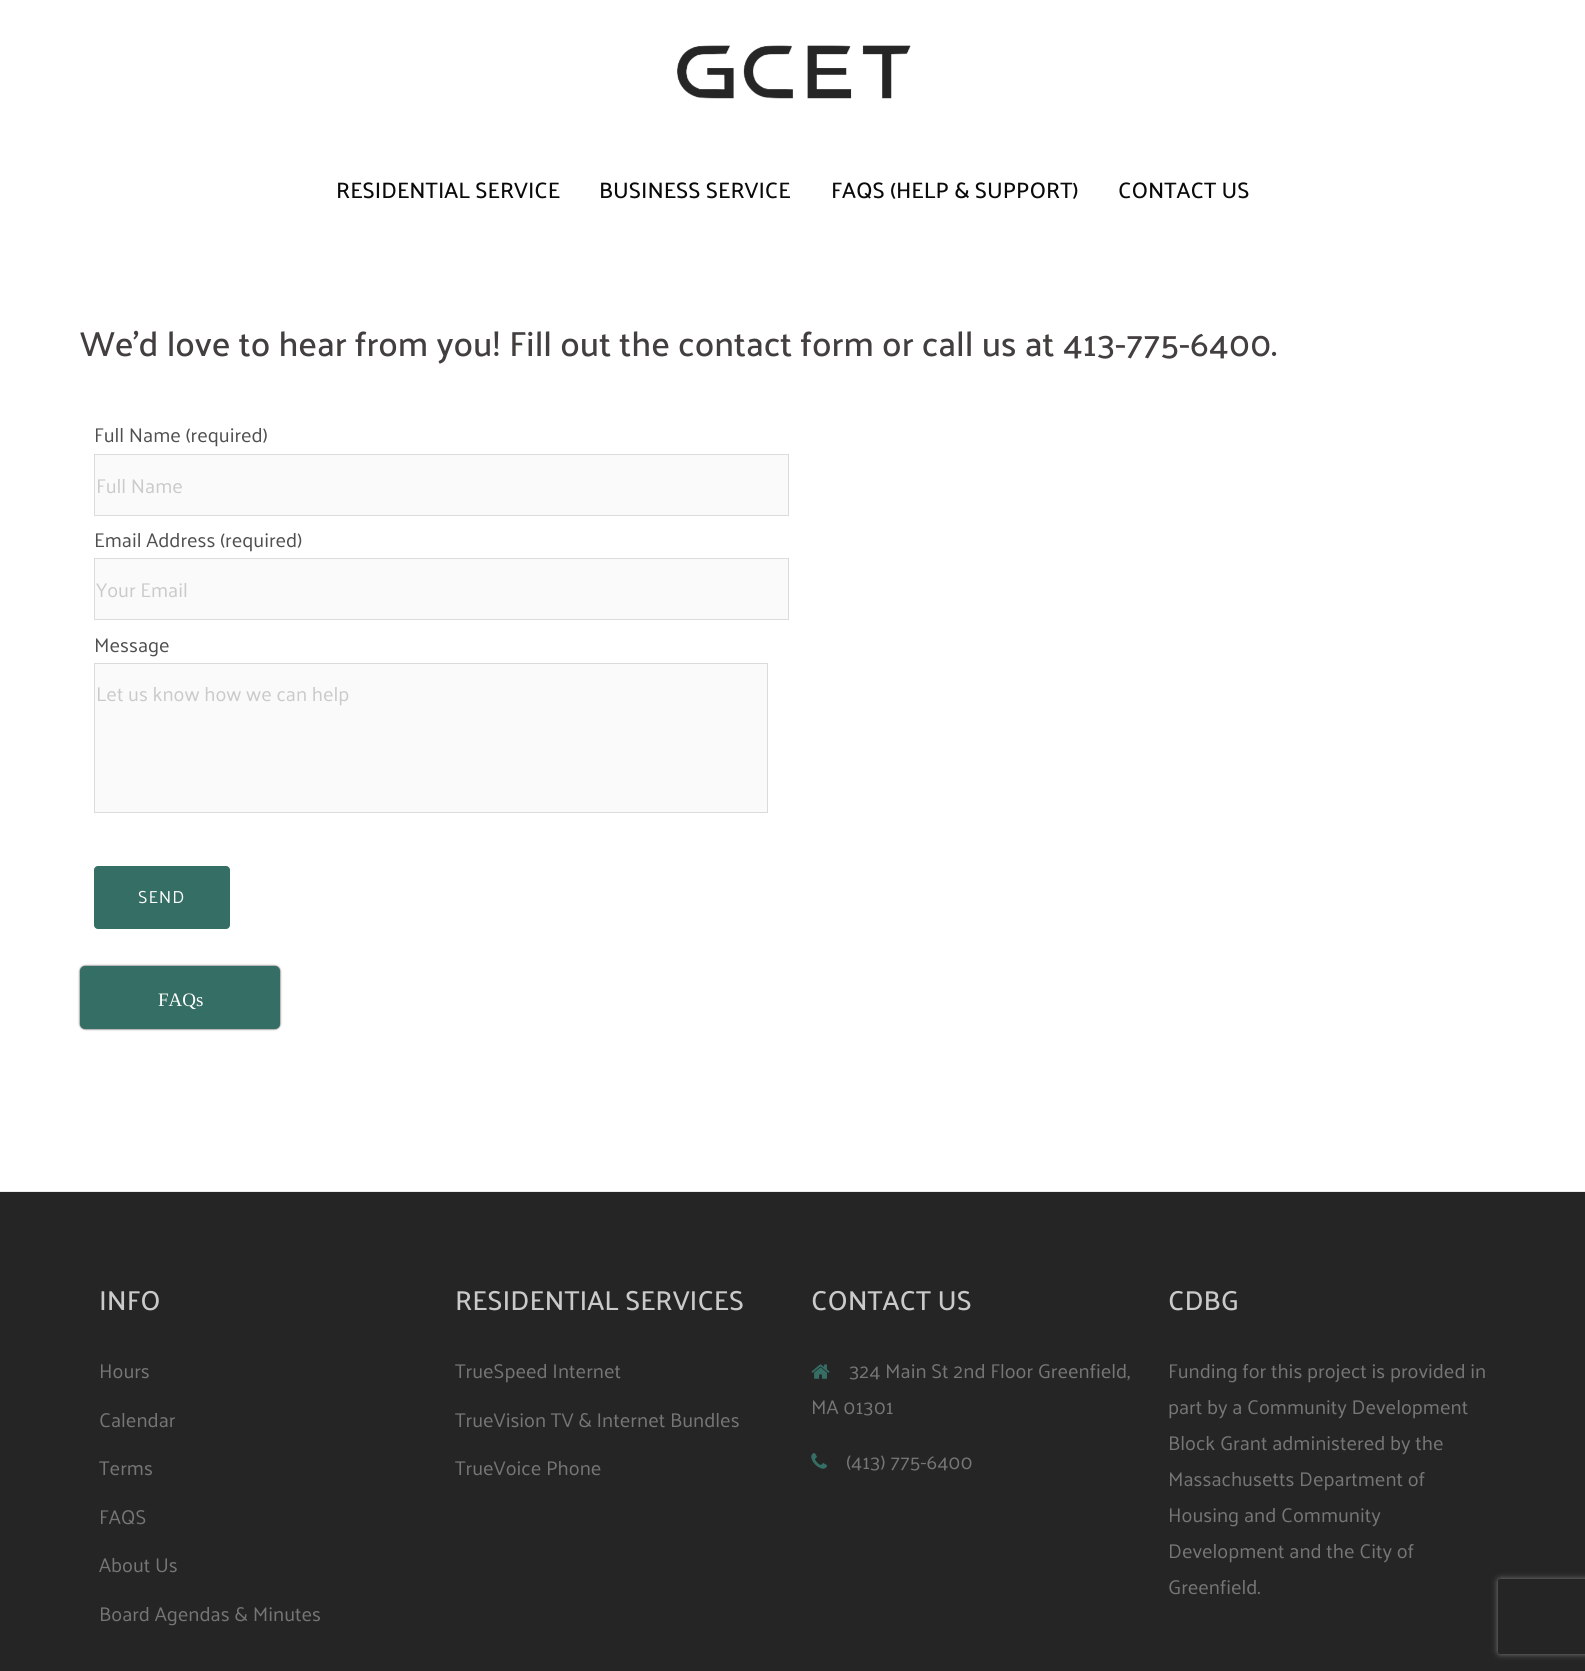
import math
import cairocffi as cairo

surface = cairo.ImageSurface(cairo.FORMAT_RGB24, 1585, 1671)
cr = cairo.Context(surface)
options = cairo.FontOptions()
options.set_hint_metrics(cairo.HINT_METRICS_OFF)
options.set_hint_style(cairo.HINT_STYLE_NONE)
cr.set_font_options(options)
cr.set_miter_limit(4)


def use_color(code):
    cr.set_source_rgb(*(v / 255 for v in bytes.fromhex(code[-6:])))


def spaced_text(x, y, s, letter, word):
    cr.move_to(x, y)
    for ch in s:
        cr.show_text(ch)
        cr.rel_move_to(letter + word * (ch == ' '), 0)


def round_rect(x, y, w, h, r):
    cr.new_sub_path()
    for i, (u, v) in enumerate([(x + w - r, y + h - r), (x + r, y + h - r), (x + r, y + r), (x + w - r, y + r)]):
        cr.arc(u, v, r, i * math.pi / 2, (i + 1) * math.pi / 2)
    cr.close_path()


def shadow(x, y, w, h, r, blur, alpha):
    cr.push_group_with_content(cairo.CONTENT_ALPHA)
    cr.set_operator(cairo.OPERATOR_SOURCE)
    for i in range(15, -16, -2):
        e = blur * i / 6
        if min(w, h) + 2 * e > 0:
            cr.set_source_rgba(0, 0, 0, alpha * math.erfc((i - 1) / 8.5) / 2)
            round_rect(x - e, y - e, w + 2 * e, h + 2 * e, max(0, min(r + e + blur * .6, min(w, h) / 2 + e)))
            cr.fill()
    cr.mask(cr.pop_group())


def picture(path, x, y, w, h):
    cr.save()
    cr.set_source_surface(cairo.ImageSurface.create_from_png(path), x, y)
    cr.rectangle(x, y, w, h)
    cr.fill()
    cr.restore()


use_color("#ffffff")
cr.paint()
picture("img1.png", 677, 45, 234, 54)
cr.select_font_face("Palanquin Medium")
cr.set_font_size(22.5)
use_color("#0a0a0a")
cr.move_to(336, 198)
cr.show_text("RESIDENTIAL SERVICE")
cr.move_to(599, 198)
cr.show_text("BUSINESS SERVICE")
cr.move_to(831, 198)
cr.show_text("FAQS (HELP & SUPPORT)")
cr.move_to(1118, 198)
cr.show_text("CONTACT US")
cr.set_font_size(35)
use_color("#443f3f")
cr.move_to(80, 356)
cr.show_text("We’d love to hear from you! Fill out the contact form or call us at 413-775-6400.")
cr.select_font_face("Palanquin")
cr.set_font_size(20)
use_color("#4f4f4f")
cr.move_to(94, 442)
cr.show_text("Full Name (required)")
use_color("#fafafa")
cr.rectangle(94.5, 454.5, 694, 61)
cr.fill_preserve()
use_color("#dbdbdb")
cr.set_line_width(1)
cr.stroke()
use_color("#cacaca")
cr.move_to(96, 493)
cr.show_text("Full Name")
use_color("#4f4f4f")
cr.move_to(94, 547)
cr.show_text("Email Address (required)")
use_color("#fafafa")
cr.rectangle(94.5, 558.5, 694, 61)
cr.fill_preserve()
use_color("#dbdbdb")
cr.stroke()
use_color("#cacaca")
cr.move_to(96, 597)
cr.show_text("Your Email")
use_color("#4f4f4f")
cr.move_to(94, 652)
cr.show_text("Message")
use_color("#fafafa")
cr.rectangle(94.5, 663.5, 673, 149)
cr.fill_preserve()
use_color("#dbdbdb")
cr.stroke()
use_color("#cacaca")
cr.move_to(96, 701)
cr.show_text("Let us know how we can help")
use_color("#356e64")
round_rect(94.5, 866.5, 135, 62, 3.5)
cr.fill_preserve()
cr.stroke()
cr.set_font_size(17.5)
use_color("#ffffff")
spaced_text(138, 903, "SEND", 1, 0)
use_color("#333333")
shadow(80, 966, 200, 63, 5, 1, 1)
use_color("#356e64")
round_rect(81.5, 967.5, 197, 60, 3.5)
cr.fill_preserve()
cr.set_line_width(3)
cr.stroke()
cr.select_font_face("Liberation Serif")
cr.set_font_size(19)
use_color("#ffffff")
cr.move_to(158, 1006)
cr.show_text("FAQs")
use_color("#252525")
cr.rectangle(0, 1192, 1585, 479)
cr.fill()
use_color("#ebebeb")
cr.rectangle(0, 1191, 1585, 1)
cr.fill()
cr.select_font_face("Palanquin Medium")
cr.set_font_size(27.5)
use_color("#cacaca")
cr.move_to(99, 1310)
cr.show_text("INFO")
cr.select_font_face("Palanquin")
cr.set_font_size(20)
use_color("#767676")
cr.move_to(99, 1378)
cr.show_text("Hours")
cr.move_to(99, 1427)
cr.show_text("Calendar")
cr.move_to(99, 1475)
cr.show_text("Terms")
cr.move_to(99, 1524)
cr.show_text("FAQS")
cr.move_to(99, 1572)
cr.show_text("About Us")
cr.move_to(99, 1621)
cr.show_text("Board Agendas & Minutes")
cr.select_font_face("Palanquin Medium")
cr.set_font_size(27.5)
use_color("#cacaca")
cr.move_to(455, 1310)
cr.show_text("RESIDENTIAL SERVICES")
cr.select_font_face("Palanquin")
cr.set_font_size(20)
use_color("#767676")
cr.move_to(455, 1378)
cr.show_text("TrueSpeed Internet")
cr.move_to(455, 1427)
cr.show_text("TrueVision TV & Internet Bundles")
cr.move_to(455, 1475)
cr.show_text("TrueVoice Phone")
cr.select_font_face("Palanquin Medium")
cr.set_font_size(27.5)
use_color("#cacaca")
cr.move_to(811, 1310)
cr.show_text("CONTACT US")
picture("img2.png", 811, 1364, 19, 15)
cr.select_font_face("Palanquin")
cr.set_font_size(20)
use_color("#767676")
cr.move_to(849, 1378)
cr.show_text("324 Main St 2nd Floor Greenfield,")
cr.move_to(811, 1414)
cr.show_text("MA 01301")
picture("img3.png", 811, 1453, 16, 16)
cr.move_to(846, 1469)
cr.show_text("(413) 775-6400")
cr.select_font_face("Palanquin Medium")
cr.set_font_size(27.5)
use_color("#cacaca")
cr.move_to(1168, 1310)
cr.show_text("CDBG")
cr.select_font_face("Palanquin")
cr.set_font_size(20)
use_color("#767676")
cr.move_to(1168, 1378)
cr.show_text("Funding for this project is provided in")
cr.move_to(1168, 1414)
cr.show_text("part by a Community Development")
cr.move_to(1168, 1450)
cr.show_text("Block Grant administered by the")
cr.move_to(1168, 1486)
cr.show_text("Massachusetts Department of")
cr.move_to(1168, 1522)
cr.show_text("Housing and Community")
cr.move_to(1168, 1558)
cr.show_text("Development and the City of")
cr.move_to(1168, 1594)
cr.show_text("Greenfield.")
cr.save()
cr.set_fill_rule(cairo.FILL_RULE_EVEN_ODD)
cr.new_path()
cr.move_to(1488, 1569)
cr.line_to(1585, 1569)
cr.line_to(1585, 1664)
cr.line_to(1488, 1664)
cr.close_path()
cr.move_to(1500.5, 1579)
cr.line_to(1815.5, 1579)
cr.curve_to(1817, 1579, 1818, 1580, 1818, 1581.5)
cr.line_to(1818, 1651.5)
cr.curve_to(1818, 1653, 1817, 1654, 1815.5, 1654)
cr.line_to(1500.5, 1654)
cr.curve_to(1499, 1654, 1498, 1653, 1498, 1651.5)
cr.line_to(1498, 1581.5)
cr.curve_to(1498, 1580, 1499, 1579, 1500.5, 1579)
cr.close_path()
cr.clip()
use_color("#808080")
shadow(1498, 1579, 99, 75, 2.5, 3, 1)
cr.restore()
surface.write_to_png("result.png")
